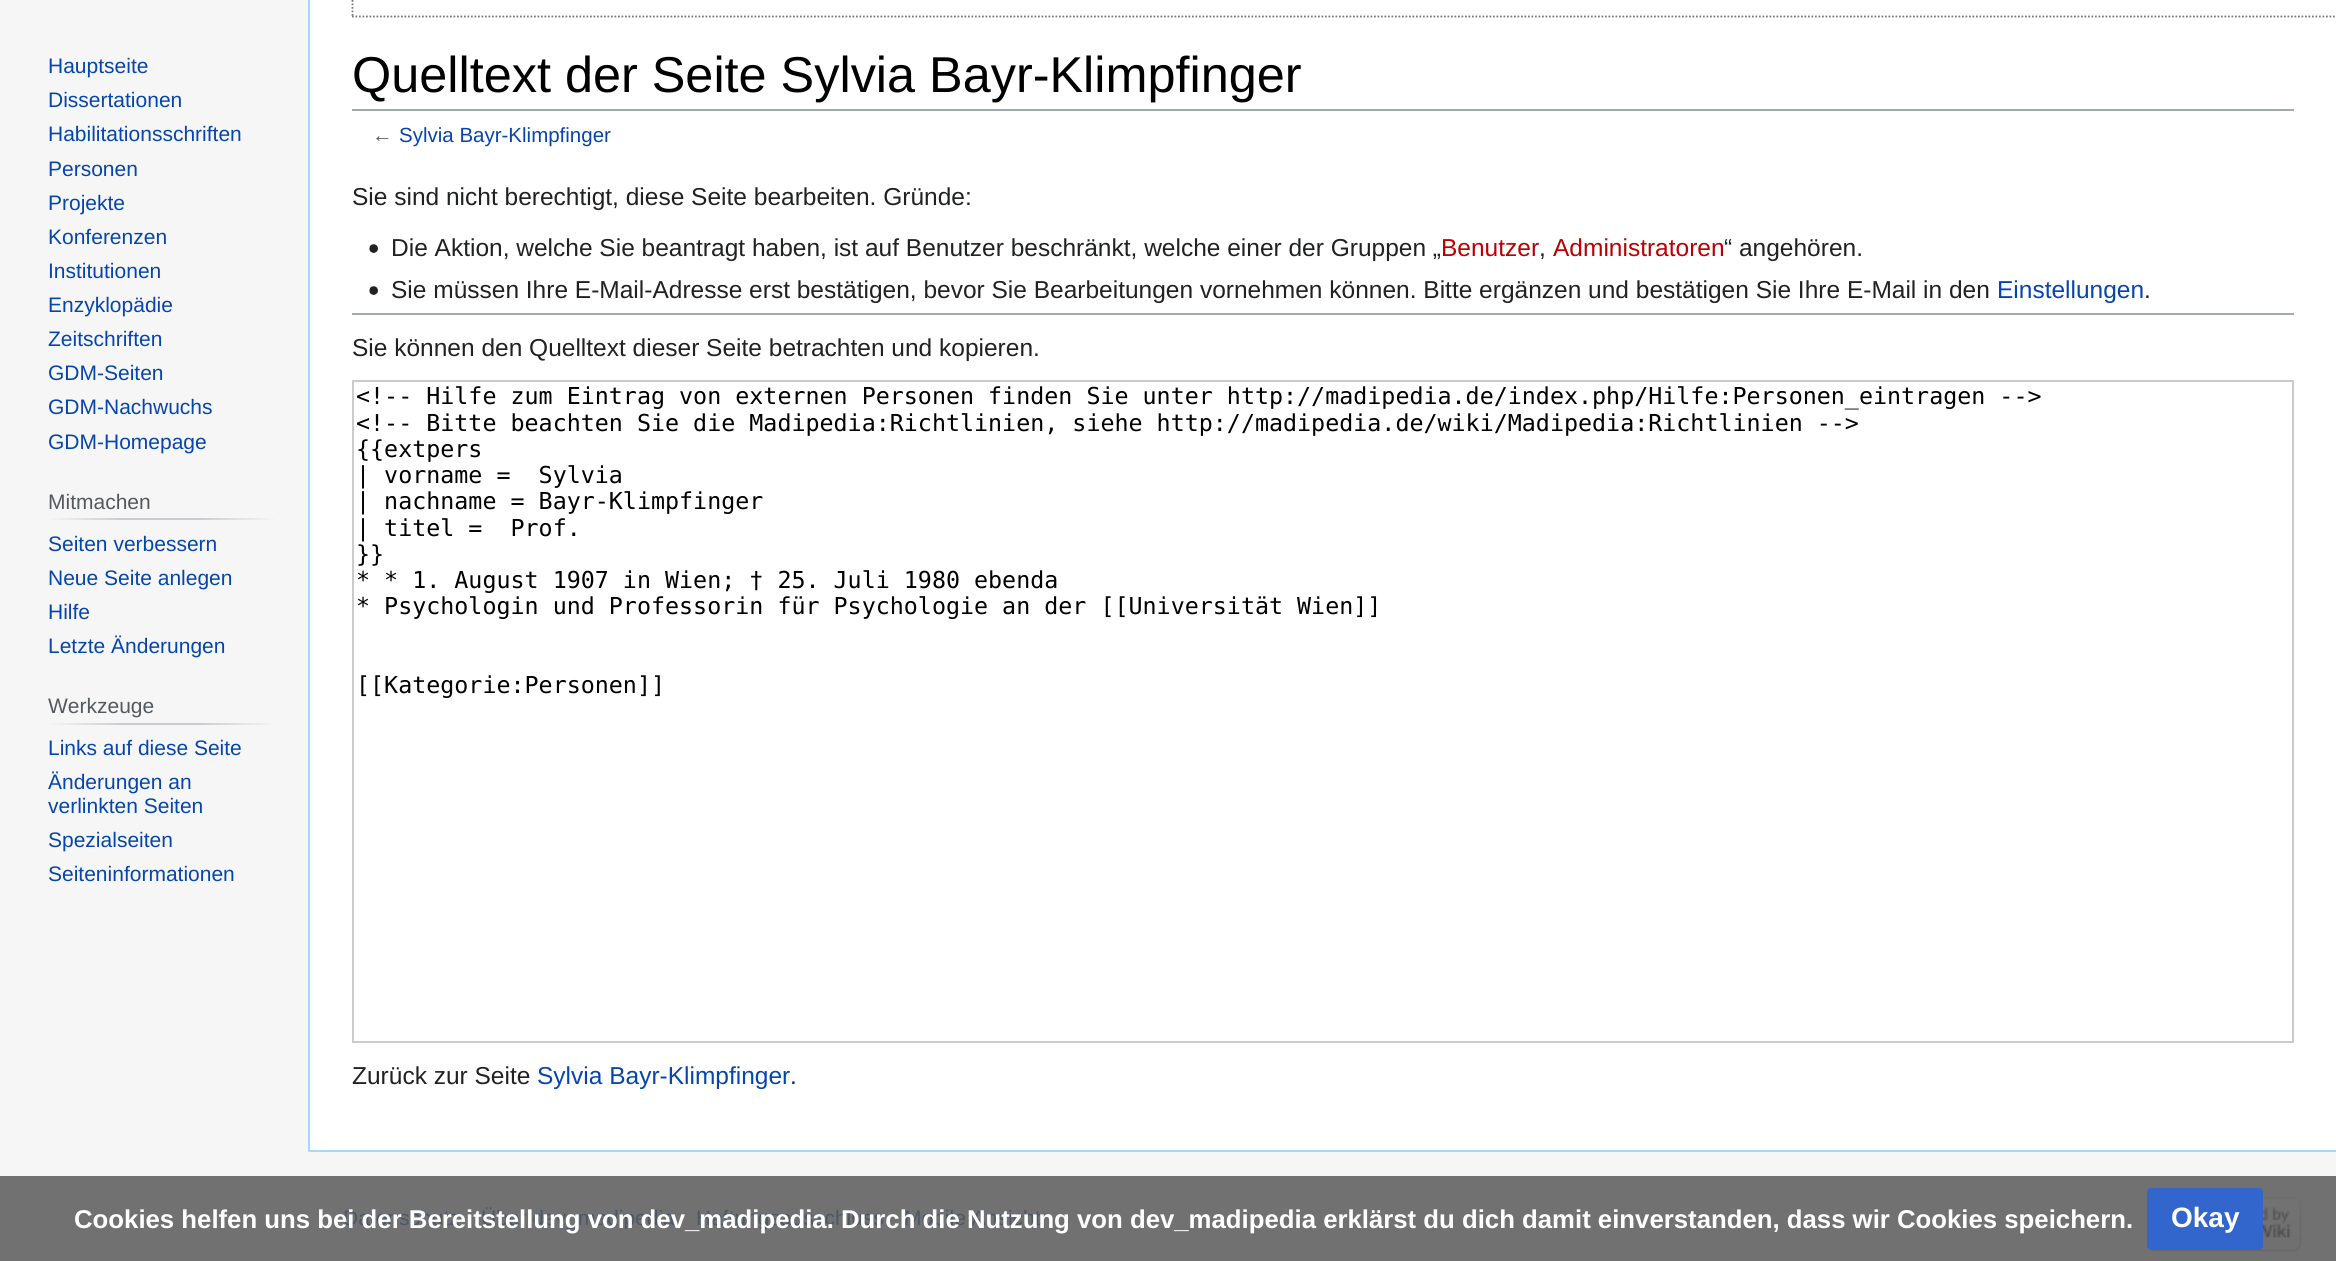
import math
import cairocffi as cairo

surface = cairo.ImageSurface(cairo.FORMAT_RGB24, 2336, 1261)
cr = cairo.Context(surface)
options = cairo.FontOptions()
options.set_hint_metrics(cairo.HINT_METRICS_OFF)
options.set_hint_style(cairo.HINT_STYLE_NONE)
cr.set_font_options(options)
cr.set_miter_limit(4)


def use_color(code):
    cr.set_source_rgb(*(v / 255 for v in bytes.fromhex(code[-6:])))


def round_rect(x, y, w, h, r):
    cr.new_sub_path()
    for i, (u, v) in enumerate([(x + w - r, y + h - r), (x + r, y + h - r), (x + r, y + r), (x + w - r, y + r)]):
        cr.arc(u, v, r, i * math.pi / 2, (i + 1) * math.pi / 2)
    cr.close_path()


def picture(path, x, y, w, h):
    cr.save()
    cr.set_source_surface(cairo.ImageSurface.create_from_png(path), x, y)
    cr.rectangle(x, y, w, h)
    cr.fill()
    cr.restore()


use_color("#f6f6f6")
cr.paint()
use_color("#717171")
cr.rectangle(0, 1176, 2336, 85)
cr.fill()
cr.select_font_face("Liberation Sans")
cr.set_font_size(21)
use_color("#0645ad")
cr.move_to(48, 73)
cr.show_text("Hauptseite")
cr.move_to(48, 107)
cr.show_text("Dissertationen")
cr.move_to(48, 141)
cr.show_text("Habilitationsschriften")
cr.move_to(48, 176)
cr.show_text("Personen")
cr.move_to(48, 210)
cr.show_text("Projekte")
cr.move_to(48, 244)
cr.show_text("Konferenzen")
cr.move_to(48, 278)
cr.show_text("Institutionen")
cr.move_to(48, 312)
cr.show_text("Enzyklopädie")
cr.move_to(48, 346)
cr.show_text("Zeitschriften")
cr.move_to(48, 380)
cr.show_text("GDM-Seiten")
cr.move_to(48, 414)
cr.show_text("GDM-Nachwuchs")
cr.move_to(48, 449)
cr.show_text("GDM-Homepage")
gradient = cairo.LinearGradient(47, 519, 277, 519)
gradient.add_color_stop_rgba(0, 0.965, 0.965, 0.965, 1)
gradient.add_color_stop_rgba(0.33, 0.784, 0.8, 0.82, 1)
gradient.add_color_stop_rgba(0.66, 0.784, 0.8, 0.82, 1)
gradient.add_color_stop_rgba(1, 0.965, 0.965, 0.965, 1)
cr.set_source(gradient)
cr.rectangle(47, 518, 230, 2)
cr.fill()
use_color("#54595d")
cr.move_to(48, 509)
cr.show_text("Mitmachen")
use_color("#0645ad")
cr.move_to(48, 551)
cr.show_text("Seiten verbessern")
cr.move_to(48, 585)
cr.show_text("Neue Seite anlegen")
cr.move_to(48, 619)
cr.show_text("Hilfe")
cr.move_to(48, 653)
cr.show_text("Letzte Änderungen")
gradient = cairo.LinearGradient(47, 724, 277, 724)
gradient.add_color_stop_rgba(0, 0.965, 0.965, 0.965, 1)
gradient.add_color_stop_rgba(0.33, 0.784, 0.8, 0.82, 1)
gradient.add_color_stop_rgba(0.66, 0.784, 0.8, 0.82, 1)
gradient.add_color_stop_rgba(1, 0.965, 0.965, 0.965, 1)
cr.set_source(gradient)
cr.rectangle(47, 723, 230, 2)
cr.fill()
use_color("#54595d")
cr.move_to(48, 713)
cr.show_text("Werkzeuge")
use_color("#0645ad")
cr.move_to(48, 755)
cr.show_text("Links auf diese Seite")
cr.move_to(48, 789)
cr.show_text("Änderungen an")
cr.move_to(48, 813)
cr.show_text("verlinkten Seiten")
cr.move_to(48, 847)
cr.show_text("Spezialseiten")
cr.move_to(48, 881)
cr.show_text("Seiteninformationen")
use_color("#ffffff")
cr.rectangle(310, 0, 2026, 1150)
cr.fill()
use_color("#a7d7f9")
cr.rectangle(308, 1150, 2028, 2)
cr.fill()
cr.rectangle(308, 0, 2, 1152)
cr.fill()
cr.new_path()
cr.move_to(352, 16.5)
cr.line_to(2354, 16.5)
use_color("#777777")
cr.set_line_width(1.8)
cr.set_dash([1.75, 1.75])
cr.stroke()
cr.new_path()
cr.move_to(352.5, -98)
cr.line_to(352.5, 17.5)
cr.stroke()
use_color("#a2a9b1")
cr.rectangle(352, 109, 1942, 2)
cr.fill()
cr.set_font_size(50.4)
use_color("#000000")
cr.move_to(352, 92)
cr.show_text("Quelltext der Seite Sylvia Bayr-Klimpfinger")
cr.set_font_size(20.5)
use_color("#54595d")
cr.move_to(372, 142)
cr.show_text("←")
use_color("#0645ad")
cr.move_to(399, 142)
cr.show_text("Sylvia Bayr-Klimpfinger")
cr.set_font_size(24.5)
use_color("#202122")
cr.move_to(352, 205)
cr.show_text("Sie sind nicht berechtigt, diese Seite bearbeiten. Gründe:")
picture("img1.png", 369, 244, 9, 9)
cr.move_to(391, 256)
cr.show_text("Die Aktion, welche Sie beantragt haben, ist auf Benutzer beschränkt, welche einer der Gruppen „")
use_color("#ba0000")
cr.move_to(1441, 256)
cr.show_text("Benutzer")
use_color("#202122")
cr.move_to(1539, 256)
cr.show_text(",")
use_color("#ba0000")
cr.move_to(1553, 256)
cr.show_text("Administratoren")
use_color("#202122")
cr.move_to(1724, 256)
cr.show_text("“ angehören.")
picture("img1.png", 369, 286, 9, 9)
cr.move_to(391, 298)
cr.show_text("Sie müssen Ihre E-Mail-Adresse erst bestätigen, bevor Sie Bearbeitungen vornehmen können. Bitte ergänzen und bestätigen Sie Ihre E-Mail in den")
use_color("#0645ad")
cr.move_to(1997, 298)
cr.show_text("Einstellungen")
use_color("#202122")
cr.move_to(2144, 298)
cr.show_text(".")
use_color("#a2a9b1")
cr.rectangle(352, 313, 1942, 2)
cr.fill()
use_color("#202122")
cr.move_to(352, 356)
cr.show_text("Sie können den Quelltext dieser Seite betrachten und kopieren.")
cr.rectangle(353, 381, 1940, 661)
use_color("#c8ccd1")
cr.set_line_width(2)
cr.set_dash([])
cr.stroke()
cr.select_font_face("DejaVu Sans Mono")
cr.set_font_size(23.33)
use_color("#000000")
cr.move_to(356, 404)
cr.show_text("<!-- Hilfe zum Eintrag von externen Personen finden Sie unter http://madipedia.de/index.php/Hilfe:Personen_eintragen -->")
cr.move_to(356, 431)
cr.show_text("<!-- Bitte beachten Sie die Madipedia:Richtlinien, siehe http://madipedia.de/wiki/Madipedia:Richtlinien -->")
cr.move_to(356, 457)
cr.show_text("{{extpers")
cr.move_to(356, 483)
cr.show_text("| vorname =  Sylvia")
cr.move_to(356, 509)
cr.show_text("| nachname = Bayr-Klimpfinger")
cr.move_to(356, 536)
cr.show_text("| titel =  Prof.")
cr.move_to(356, 562)
cr.show_text("}}")
cr.move_to(356, 588)
cr.show_text("* * 1. August 1907 in Wien; † 25. Juli 1980 ebenda")
cr.move_to(356, 614)
cr.show_text("* Psychologin und Professorin für Psychologie an der [[Universität Wien]]")
cr.move_to(356, 693)
cr.show_text("[[Kategorie:Personen]]")
cr.select_font_face("Liberation Sans")
cr.set_font_size(24.5)
use_color("#202122")
cr.move_to(352, 1084)
cr.show_text("Zurück zur Seite")
use_color("#0645ad")
cr.move_to(537, 1084)
cr.show_text("Sylvia Bayr-Klimpfinger")
use_color("#202122")
cr.move_to(790, 1084)
cr.show_text(".")
cr.set_font_size(21)
use_color("#4d5766")
cr.move_to(343, 1225)
cr.show_text("Datenschutz")
cr.move_to(481, 1225)
cr.show_text("Über dev_madipedia")
cr.move_to(696, 1225)
cr.show_text("Haftungsausschluss")
cr.move_to(904, 1225)
cr.show_text("Mobile Ansicht")
cr.select_font_face("Liberation Sans", cairo.FONT_SLANT_NORMAL, cairo.FONT_WEIGHT_BOLD)
cr.set_font_size(25.75)
use_color("#ffffff")
cr.move_to(74, 1228)
cr.show_text("Cookies helfen uns bei der Bereitstellung von dev_madipedia. Durch die Nutzung von dev_madipedia erklärst du dich damit einverstanden, dass wir Cookies speichern.")
picture("img2.png", 2147, 1197, 155, 55)
use_color("#3366cc")
round_rect(2148, 1189, 114, 60, 3)
cr.fill_preserve()
cr.stroke()
cr.set_font_size(28)
use_color("#ffffff")
cr.move_to(2171, 1227)
cr.show_text("Okay")
surface.write_to_png("result.png")
